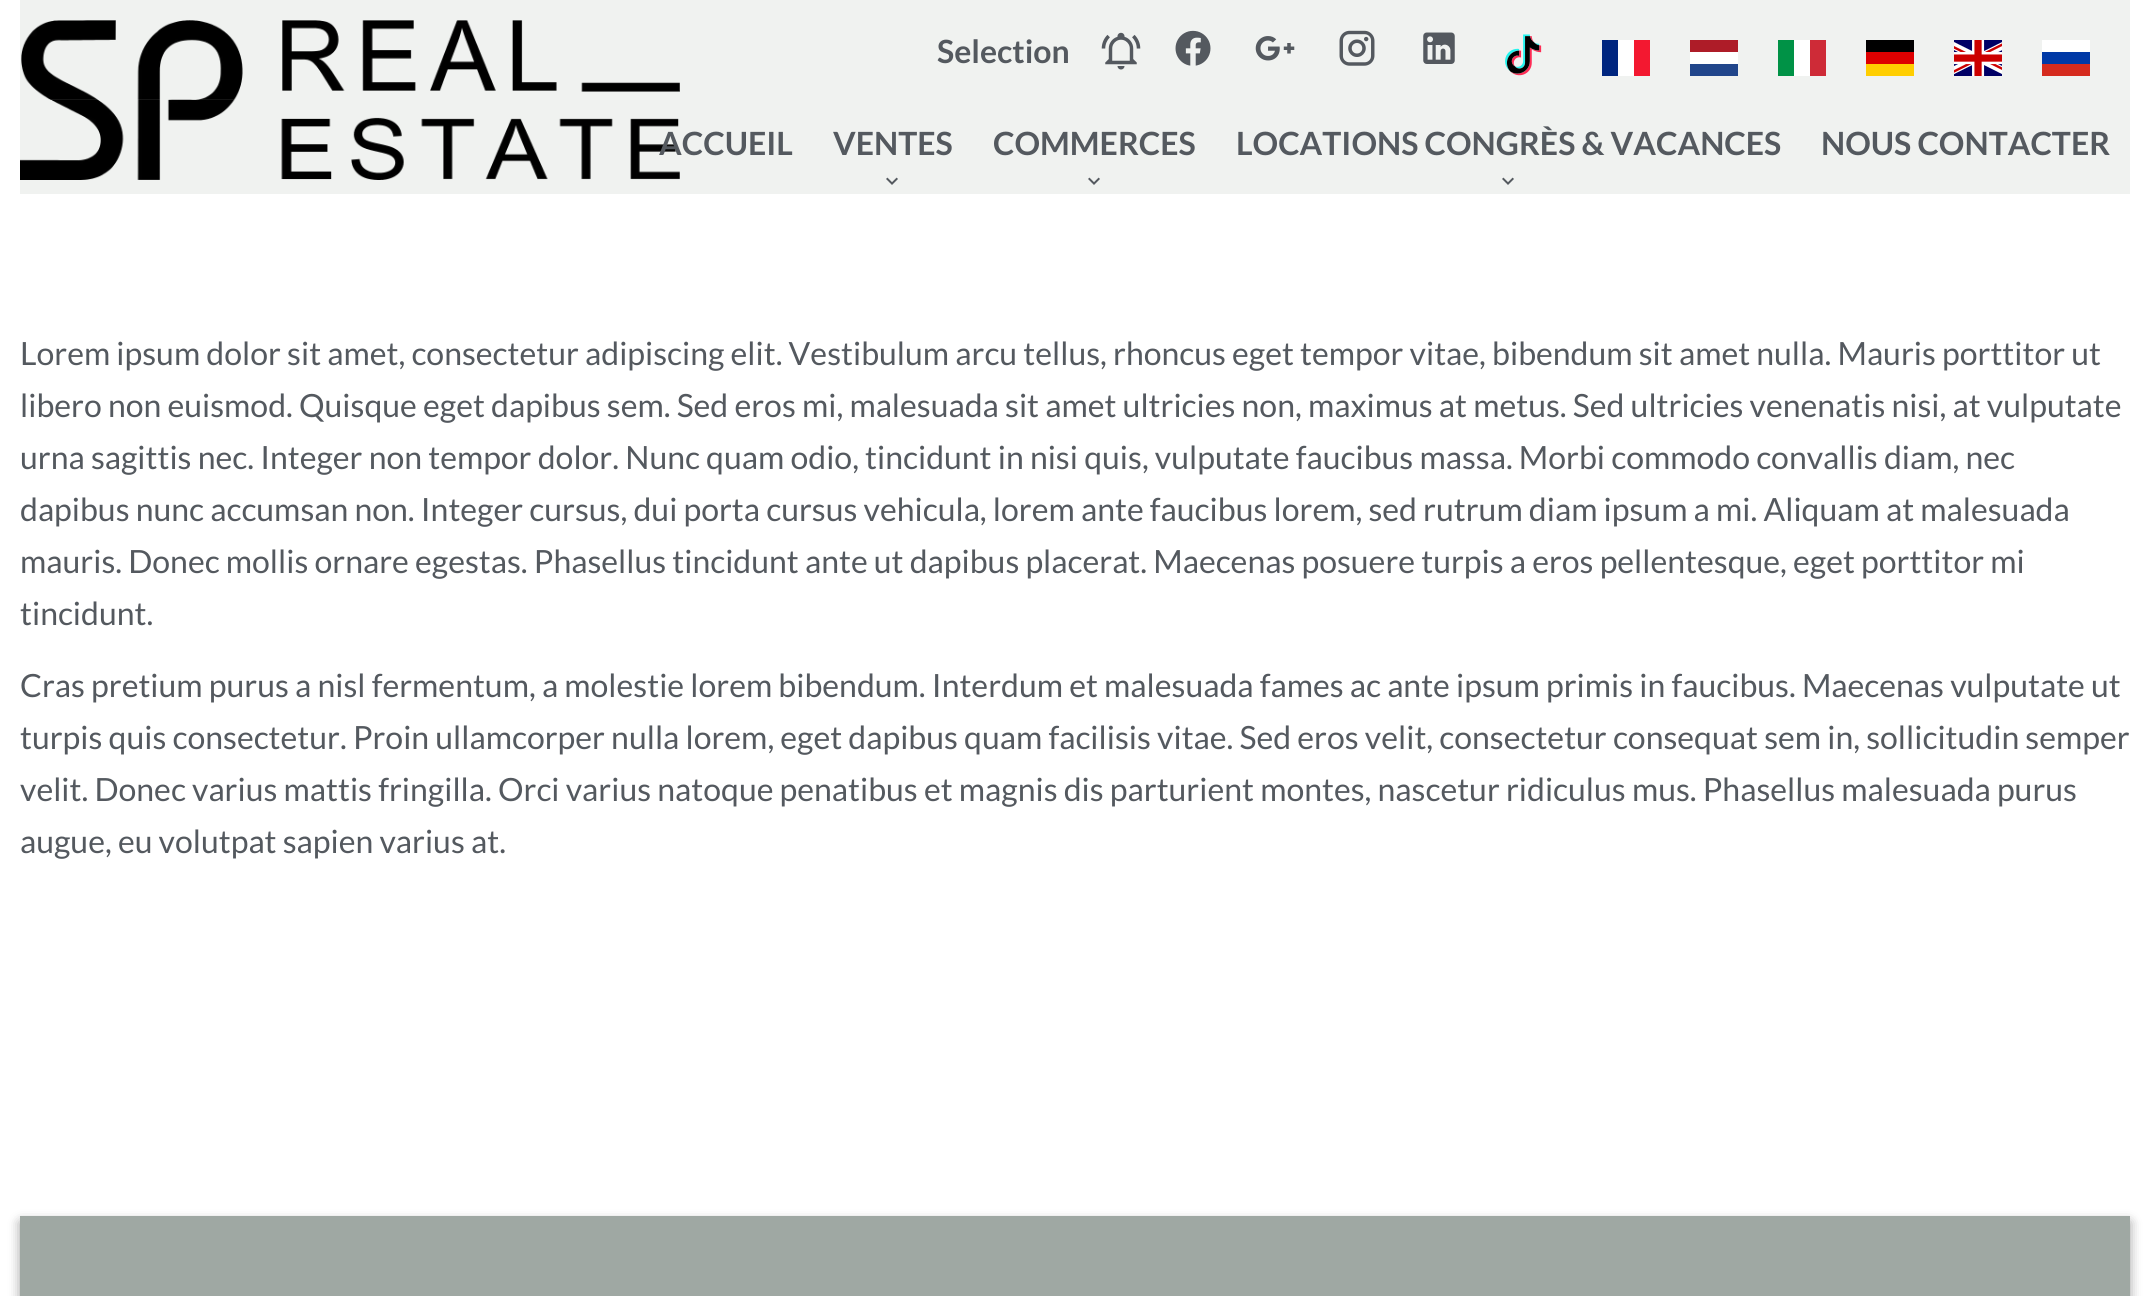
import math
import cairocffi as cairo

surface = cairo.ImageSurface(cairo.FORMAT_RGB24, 2150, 1296)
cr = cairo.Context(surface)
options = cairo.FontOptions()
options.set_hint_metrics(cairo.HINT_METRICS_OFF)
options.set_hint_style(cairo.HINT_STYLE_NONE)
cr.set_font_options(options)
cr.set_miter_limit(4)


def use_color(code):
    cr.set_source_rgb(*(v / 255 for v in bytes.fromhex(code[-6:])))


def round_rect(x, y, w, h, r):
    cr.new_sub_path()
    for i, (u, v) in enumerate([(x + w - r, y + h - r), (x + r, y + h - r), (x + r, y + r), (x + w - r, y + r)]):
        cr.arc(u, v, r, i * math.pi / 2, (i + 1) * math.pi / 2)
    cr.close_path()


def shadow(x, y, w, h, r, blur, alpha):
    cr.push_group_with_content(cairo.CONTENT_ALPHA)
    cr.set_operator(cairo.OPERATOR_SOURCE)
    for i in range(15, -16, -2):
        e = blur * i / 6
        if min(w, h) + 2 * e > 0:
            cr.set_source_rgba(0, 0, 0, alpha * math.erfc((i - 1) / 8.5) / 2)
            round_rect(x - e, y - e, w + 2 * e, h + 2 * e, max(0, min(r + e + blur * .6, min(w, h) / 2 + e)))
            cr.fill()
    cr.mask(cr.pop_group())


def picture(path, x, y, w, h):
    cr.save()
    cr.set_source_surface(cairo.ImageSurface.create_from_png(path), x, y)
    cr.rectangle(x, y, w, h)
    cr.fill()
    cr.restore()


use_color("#ffffff")
cr.paint()
use_color("#f0f2f0")
cr.rectangle(20, 0, 2110, 194)
cr.fill()
picture("img1.png", 20, 20, 660, 160)
cr.select_font_face("Lato", cairo.FONT_SLANT_NORMAL, cairo.FONT_WEIGHT_BOLD)
cr.set_font_size(32)
use_color("#54595f")
cr.move_to(937, 63)
cr.show_text("Selection")
picture("img2.png", 1101, 32, 40, 38)
picture("img3.png", 1175, 30, 36, 36)
picture("img4.png", 1255, 36, 40, 25)
picture("img5.png", 1339, 30, 36, 36)
picture("img6.png", 1423, 32, 32, 32)
picture("img7.png", 1505, 34, 37, 42)
use_color("#ffffff")
cr.rectangle(1618, 40, 16, 36)
cr.fill()
use_color("#00267f")
cr.rectangle(1602, 40, 16, 36)
cr.fill()
use_color("#f31830")
cr.rectangle(1634, 40, 16, 36)
cr.fill()
use_color("#ffffff")
cr.rectangle(1690, 52, 48, 12)
cr.fill()
use_color("#21468b")
cr.rectangle(1690, 64, 48, 12)
cr.fill()
use_color("#ae1c28")
cr.rectangle(1690, 40, 48, 12)
cr.fill()
use_color("#ffffff")
cr.rectangle(1794, 40, 16, 36)
cr.fill()
use_color("#009246")
cr.rectangle(1778, 40, 16, 36)
cr.fill()
use_color("#ce2b37")
cr.rectangle(1810, 40, 16, 36)
cr.fill()
use_color("#ffce00")
cr.rectangle(1866, 64, 48, 12)
cr.fill()
use_color("#000000")
cr.rectangle(1866, 40, 48, 12)
cr.fill()
use_color("#dd0000")
cr.rectangle(1866, 52, 48, 12)
cr.fill()
picture("img8.png", 1954, 40, 48, 36)
use_color("#ffffff")
cr.rectangle(2042, 40, 48, 12)
cr.fill()
use_color("#0039a6")
cr.rectangle(2042, 52, 48, 12)
cr.fill()
use_color("#d52b1e")
cr.rectangle(2042, 64, 48, 12)
cr.fill()
use_color("#54595f")
cr.move_to(659, 155)
cr.show_text("ACCUEIL")
cr.move_to(833, 155)
cr.show_text("VENTES")
picture("img9.png", 886, 177, 12, 8)
cr.move_to(993, 155)
cr.show_text("COMMERCES")
picture("img9.png", 1088, 177, 12, 8)
cr.move_to(1236, 155)
cr.show_text("LOCATIONS CONGRÈS & VACANCES")
picture("img9.png", 1502, 177, 12, 8)
cr.move_to(1821, 155)
cr.show_text("NOUS CONTACTER")
cr.select_font_face("Lato")
cr.move_to(20, 365)
cr.show_text("Lorem ipsum dolor sit amet, consectetur adipiscing elit. Vestibulum arcu tellus, rhoncus eget tempor vitae, bibendum sit amet nulla. Mauris porttitor ut")
cr.move_to(20, 417)
cr.show_text("libero non euismod. Quisque eget dapibus sem. Sed eros mi, malesuada sit amet ultricies non, maximus at metus. Sed ultricies venenatis nisi, at vulputate")
cr.move_to(20, 469)
cr.show_text("urna sagittis nec. Integer non tempor dolor. Nunc quam odio, tincidunt in nisi quis, vulputate faucibus massa. Morbi commodo convallis diam, nec")
cr.move_to(20, 521)
cr.show_text("dapibus nunc accumsan non. Integer cursus, dui porta cursus vehicula, lorem ante faucibus lorem, sed rutrum diam ipsum a mi. Aliquam at malesuada")
cr.move_to(20, 573)
cr.show_text("mauris. Donec mollis ornare egestas. Phasellus tincidunt ante ut dapibus placerat. Maecenas posuere turpis a eros pellentesque, eget porttitor mi")
cr.move_to(20, 625)
cr.show_text("tincidunt.")
cr.move_to(20, 697)
cr.show_text("Cras pretium purus a nisl fermentum, a molestie lorem bibendum. Interdum et malesuada fames ac ante ipsum primis in faucibus. Maecenas vulputate ut")
cr.move_to(20, 749)
cr.show_text("turpis quis consectetur. Proin ullamcorper nulla lorem, eget dapibus quam facilisis vitae. Sed eros velit, consectetur consequat sem in, sollicitudin semper")
cr.move_to(20, 801)
cr.show_text("velit. Donec varius mattis fringilla. Orci varius natoque penatibus et magnis dis parturient montes, nascetur ridiculus mus. Phasellus malesuada purus")
cr.move_to(20, 853)
cr.show_text("augue, eu volutpat sapien varius at.")
use_color("#000000")
shadow(20, 1222, 2110, 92, 0, 6, 0.23)
shadow(20, 1222, 2110, 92, 0, 6, 0.16)
use_color("#9fa8a3")
cr.rectangle(20, 1216, 2110, 80)
cr.fill()
surface.write_to_png("result.png")
